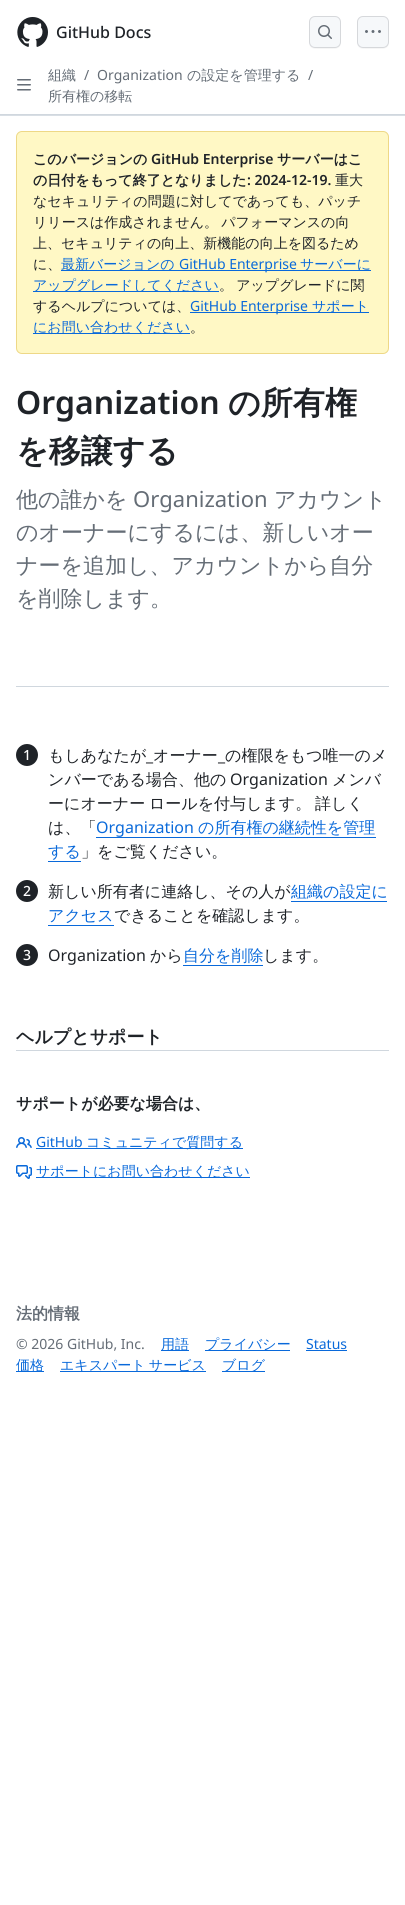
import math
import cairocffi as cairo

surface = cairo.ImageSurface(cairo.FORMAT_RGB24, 405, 1905)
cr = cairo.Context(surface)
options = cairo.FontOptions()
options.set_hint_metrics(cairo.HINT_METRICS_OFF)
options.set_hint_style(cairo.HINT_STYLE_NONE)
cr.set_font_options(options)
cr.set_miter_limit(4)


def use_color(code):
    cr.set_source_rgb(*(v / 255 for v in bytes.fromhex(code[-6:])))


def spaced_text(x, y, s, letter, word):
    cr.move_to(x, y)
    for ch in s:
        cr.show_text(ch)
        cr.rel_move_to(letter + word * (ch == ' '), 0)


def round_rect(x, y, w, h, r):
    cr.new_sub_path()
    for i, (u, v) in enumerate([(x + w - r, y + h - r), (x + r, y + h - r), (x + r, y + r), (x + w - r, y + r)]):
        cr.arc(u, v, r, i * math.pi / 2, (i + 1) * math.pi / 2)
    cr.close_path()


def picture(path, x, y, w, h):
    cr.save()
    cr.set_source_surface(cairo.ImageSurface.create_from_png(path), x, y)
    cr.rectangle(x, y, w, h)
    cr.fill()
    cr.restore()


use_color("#ffffff")
cr.paint()
use_color("#d8dee4")
cr.rectangle(0, 115, 405, 1)
cr.fill()
use_color("#d0d7de")
cr.rectangle(0, 114, 405, 1)
cr.fill()
picture("img1.png", 17, 17, 31, 30)
cr.select_font_face("Noto Sans Medium")
cr.set_font_size(16)
use_color("#1f2328")
cr.move_to(56, 38)
cr.show_text("GitHub Docs")
use_color("#f6f6f6")
cr.new_path()
cr.move_to(309, 42)
cr.curve_to(309, 48.5, 313, 49, 318.5, 49)
cr.line_to(331.5, 49)
cr.curve_to(337, 49, 341, 48.5, 341, 42)
cr.curve_to(341, 45.5, 338.5, 48, 335, 48)
cr.line_to(315, 48)
cr.curve_to(311.5, 48, 309, 45.5, 309, 42)
cr.close_path()
cr.fill()
use_color("#f6f8fa")
round_rect(309.5, 16.5, 31, 31, 5.5)
cr.fill_preserve()
use_color("#d6d8db")
cr.set_line_width(1)
cr.stroke()
picture("img2.png", 318, 25, 14, 14)
use_color("#f6f6f6")
cr.new_path()
cr.move_to(357, 42)
cr.curve_to(357, 48.5, 361, 49, 366.5, 49)
cr.line_to(379.5, 49)
cr.curve_to(385, 49, 389, 48.5, 389, 42)
cr.curve_to(389, 45.5, 386.5, 48, 383, 48)
cr.line_to(363, 48)
cr.curve_to(359.5, 48, 357, 45.5, 357, 42)
cr.close_path()
cr.fill()
use_color("#f6f8fa")
round_rect(357.5, 16.5, 31, 31, 5.5)
cr.fill_preserve()
use_color("#d6d8db")
cr.stroke()
picture("img3.png", 365, 30, 16, 3)
picture("img4.png", 17, 79, 14, 12)
cr.select_font_face("WenQuanYi Zen Hei Medium")
cr.set_font_size(14)
use_color("#656d76")
cr.move_to(48, 80)
cr.show_text("組織")
cr.select_font_face("Noto Sans")
cr.move_to(84, 80)
cr.show_text("/")
cr.move_to(97, 80)
cr.show_text("Organization")
cr.select_font_face("WenQuanYi Zen Hei Medium")
cr.move_to(187, 80)
cr.show_text("の設定を管理する")
cr.select_font_face("Noto Sans")
cr.move_to(308, 80)
cr.show_text("/")
cr.select_font_face("WenQuanYi Zen Hei Medium")
cr.move_to(48, 101)
cr.show_text("所有権の移転")
use_color("#fff8c5")
round_rect(16, 131, 373, 223, 6)
cr.fill()
round_rect(16.5, 131.5, 372, 222, 5.5)
cr.set_source_rgba(0.831, 0.655, 0.173, 0.4)
cr.stroke()
cr.select_font_face("WenQuanYi Zen Hei", cairo.FONT_SLANT_NORMAL, cairo.FONT_WEIGHT_BOLD)
use_color("#1f2328")
cr.move_to(33, 164)
cr.show_text("このバージョンの")
cr.select_font_face("Noto Sans SemiBold")
cr.move_to(151, 164)
cr.show_text("GitHub Enterprise")
cr.select_font_face("WenQuanYi Zen Hei", cairo.FONT_SLANT_NORMAL, cairo.FONT_WEIGHT_BOLD)
cr.move_to(277, 164)
cr.show_text("サーバーはこ")
cr.move_to(33, 185)
cr.show_text("の日付をもって終了となりました")
cr.select_font_face("Noto Sans SemiBold")
cr.move_to(247, 185)
cr.show_text(": 2024-12-19.")
cr.select_font_face("WenQuanYi Zen Hei Medium")
cr.move_to(335, 185)
cr.show_text("重大")
cr.move_to(33, 206)
cr.show_text("なセキュリティの問題に対してであっても、パッチ")
spaced_text(33, 227, "リリースは作成されません。 パフォーマンスの向", 0, -1)
cr.move_to(33, 248)
cr.show_text("上、セキュリティの向上、新機能の向上を図るため")
cr.move_to(33, 269)
cr.show_text("に、")
use_color("#0969da")
cr.rectangle(61, 270, 310, 1)
cr.fill()
cr.move_to(61, 269)
cr.show_text("最新バージョンの")
cr.select_font_face("Noto Sans")
cr.move_to(179, 269)
cr.show_text("GitHub Enterprise")
cr.select_font_face("WenQuanYi Zen Hei Medium")
cr.move_to(300, 269)
cr.show_text("サーバーに")
cr.rectangle(33, 291, 186, 1)
cr.fill()
cr.move_to(33, 290)
cr.show_text("アップグレードしてください")
use_color("#1f2328")
spaced_text(219, 290, "。 アップグレードに関", 0, -1)
cr.move_to(33, 311)
cr.show_text("するヘルプについては、")
use_color("#0969da")
cr.rectangle(190, 312, 179, 1)
cr.fill()
cr.select_font_face("Noto Sans")
cr.move_to(190, 311)
cr.show_text("GitHub Enterprise")
cr.select_font_face("WenQuanYi Zen Hei Medium")
cr.move_to(312, 311)
cr.show_text("サポート")
cr.rectangle(33, 333, 157, 1)
cr.fill()
cr.move_to(33, 332)
cr.show_text("にお問い合わせください")
use_color("#1f2328")
cr.move_to(190, 332)
cr.show_text("。")
cr.select_font_face("Noto Sans SemiBold")
cr.set_font_size(32)
cr.move_to(16, 414)
cr.show_text("Organization")
cr.select_font_face("WenQuanYi Zen Hei", cairo.FONT_SLANT_NORMAL, cairo.FONT_WEIGHT_BOLD)
cr.move_to(228, 414)
cr.show_text("の所有権")
cr.move_to(16, 462)
cr.show_text("を移譲する")
cr.select_font_face("WenQuanYi Zen Hei Medium")
cr.set_font_size(22)
use_color("#656d76")
cr.move_to(16, 507)
cr.show_text("他の誰かを")
cr.select_font_face("Noto Sans")
cr.move_to(133, 507)
cr.show_text("Organization")
cr.select_font_face("WenQuanYi Zen Hei Medium")
cr.move_to(274, 507)
cr.show_text("アカウント")
cr.move_to(16, 540)
cr.show_text("のオーナーにするには、新しいオー")
cr.move_to(16, 573)
cr.show_text("ナーを追加し、アカウントから自分")
cr.move_to(16, 606)
cr.show_text("を削除します。")
use_color("#d0d7de")
cr.rectangle(16, 686, 373, 1)
cr.fill()
use_color("#1f2328")
cr.arc(27, 755, 11, 0, 2 * math.pi)
cr.fill()
cr.select_font_face("Noto Sans Medium")
cr.set_font_size(14)
use_color("#ffffff")
cr.move_to(23, 760)
cr.show_text("1")
cr.select_font_face("WenQuanYi Zen Hei Medium")
cr.set_font_size(16)
use_color("#1f2328")
cr.move_to(48, 761)
cr.show_text("もしあなたが")
cr.select_font_face("Noto Sans")
cr.move_to(146, 761)
cr.show_text("_")
cr.select_font_face("WenQuanYi Zen Hei Medium")
cr.move_to(153, 761)
cr.show_text("オーナー")
cr.select_font_face("Noto Sans")
cr.move_to(218, 761)
cr.show_text("_")
cr.select_font_face("WenQuanYi Zen Hei Medium")
cr.move_to(225, 761)
cr.show_text("の権限をもつ唯一のメ")
cr.move_to(48, 785)
cr.show_text("ンバーである場合、他の")
cr.select_font_face("Noto Sans")
cr.move_to(230, 785)
cr.show_text("Organization")
cr.select_font_face("WenQuanYi Zen Hei Medium")
cr.move_to(332, 785)
cr.show_text("メンバ")
spaced_text(48, 809, "ーにオーナー ロールを付与します。 詳しく", 0, -1)
cr.move_to(48, 833)
cr.show_text("は、「")
cr.select_font_face("Noto Sans")
use_color("#0969da")
cr.move_to(96, 833)
cr.show_text("Organization")
cr.rectangle(96, 837, 280, 1)
cr.fill()
cr.select_font_face("WenQuanYi Zen Hei Medium")
cr.move_to(198, 833)
cr.show_text("の所有権の継続性を管理")
cr.move_to(48, 857)
cr.show_text("する")
cr.rectangle(48, 861, 33, 1)
cr.fill()
use_color("#1f2328")
cr.move_to(81, 857)
cr.show_text("」をご覧ください。")
cr.new_path()
cr.arc(27, 891, 11, 0, 2 * math.pi)
cr.fill()
cr.select_font_face("Noto Sans Medium")
cr.set_font_size(14)
use_color("#ffffff")
cr.move_to(23, 896)
cr.show_text("2")
cr.select_font_face("WenQuanYi Zen Hei Medium")
cr.set_font_size(16)
use_color("#1f2328")
cr.move_to(48, 897)
cr.show_text("新しい所有者に連絡し、その人が")
use_color("#0969da")
cr.move_to(291, 897)
cr.show_text("組織の設定に")
cr.rectangle(291, 901, 96, 1)
cr.fill()
cr.move_to(48, 921)
cr.show_text("アクセス")
cr.rectangle(48, 925, 66, 1)
cr.fill()
use_color("#1f2328")
cr.move_to(114, 921)
cr.show_text("できることを確認します。")
cr.new_path()
cr.arc(27, 955, 11, 0, 2 * math.pi)
cr.fill()
cr.select_font_face("Noto Sans Medium")
cr.set_font_size(14)
use_color("#ffffff")
cr.move_to(23, 960)
cr.show_text("3")
cr.select_font_face("Noto Sans")
cr.set_font_size(16)
use_color("#1f2328")
cr.move_to(48, 961)
cr.show_text("Organization")
cr.select_font_face("WenQuanYi Zen Hei Medium")
cr.move_to(150, 961)
cr.show_text("から")
use_color("#0969da")
cr.move_to(183, 961)
cr.show_text("自分を削除")
cr.rectangle(183, 965, 80, 1)
cr.fill()
use_color("#1f2328")
cr.move_to(263, 961)
cr.show_text("します。")
cr.select_font_face("WenQuanYi Zen Hei", cairo.FONT_SLANT_NORMAL, cairo.FONT_WEIGHT_BOLD)
cr.set_font_size(18)
cr.move_to(16, 1043)
cr.show_text("ヘルプとサポート")
use_color("#d0d7de")
cr.rectangle(16, 1050, 373, 1)
cr.fill()
cr.set_font_size(16)
use_color("#1f2328")
cr.move_to(16, 1109)
cr.show_text("サポートが必要な場合は、")
picture("img5.png", 16, 1137, 16, 11)
cr.select_font_face("Noto Sans")
cr.set_font_size(14)
use_color("#0969da")
cr.move_to(36, 1147)
cr.show_text("GitHub")
cr.rectangle(36, 1148, 207, 1)
cr.fill()
cr.select_font_face("WenQuanYi Zen Hei Medium")
cr.move_to(86, 1147)
cr.show_text("コミュニティで質問する")
picture("img6.png", 16, 1165, 16, 14)
cr.rectangle(36, 1177, 214, 1)
cr.fill()
cr.move_to(36, 1176)
cr.show_text("サポートにお問い合わせください")
cr.select_font_face("WenQuanYi Zen Hei", cairo.FONT_SLANT_NORMAL, cairo.FONT_WEIGHT_BOLD)
cr.set_font_size(16)
use_color("#656d76")
cr.move_to(16, 1319)
cr.show_text("法的情報")
cr.select_font_face("Noto Sans")
cr.set_font_size(14)
cr.move_to(16, 1349)
cr.show_text("© 2026 GitHub, Inc.")
use_color("#0969da")
cr.rectangle(161, 1350, 28, 1)
cr.fill()
cr.select_font_face("WenQuanYi Zen Hei Medium")
cr.move_to(161, 1349)
cr.show_text("用語")
cr.rectangle(205, 1350, 85, 1)
cr.fill()
cr.move_to(205, 1349)
cr.show_text("プライバシー")
cr.select_font_face("Noto Sans")
cr.move_to(306, 1349)
cr.show_text("Status")
cr.rectangle(306, 1350, 41, 1)
cr.fill()
cr.rectangle(16, 1371, 28, 1)
cr.fill()
cr.select_font_face("WenQuanYi Zen Hei Medium")
cr.move_to(16, 1370)
cr.show_text("価格")
cr.rectangle(60, 1371, 146, 1)
cr.fill()
spaced_text(60, 1370, "エキスパート サービス", 0, -1)
cr.rectangle(222, 1371, 43, 1)
cr.fill()
cr.move_to(222, 1370)
cr.show_text("ブログ")
surface.write_to_png("result.png")
